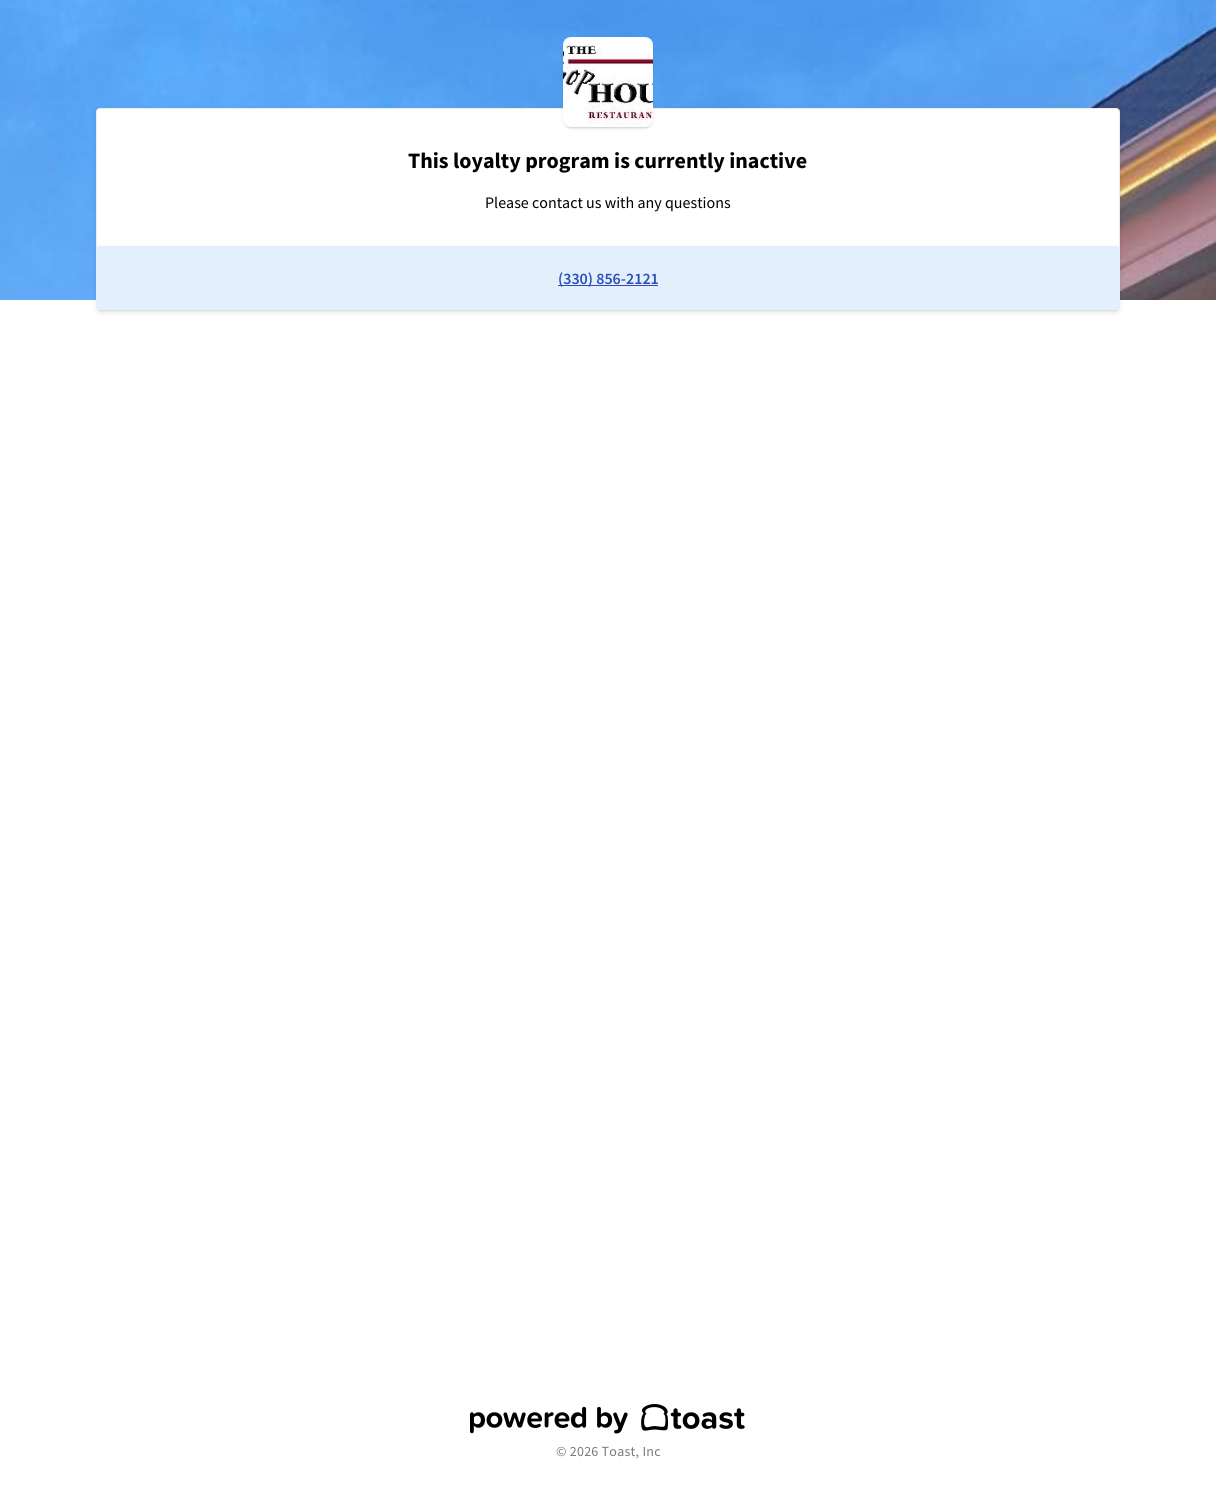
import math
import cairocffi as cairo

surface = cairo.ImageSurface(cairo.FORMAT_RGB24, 1216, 1494)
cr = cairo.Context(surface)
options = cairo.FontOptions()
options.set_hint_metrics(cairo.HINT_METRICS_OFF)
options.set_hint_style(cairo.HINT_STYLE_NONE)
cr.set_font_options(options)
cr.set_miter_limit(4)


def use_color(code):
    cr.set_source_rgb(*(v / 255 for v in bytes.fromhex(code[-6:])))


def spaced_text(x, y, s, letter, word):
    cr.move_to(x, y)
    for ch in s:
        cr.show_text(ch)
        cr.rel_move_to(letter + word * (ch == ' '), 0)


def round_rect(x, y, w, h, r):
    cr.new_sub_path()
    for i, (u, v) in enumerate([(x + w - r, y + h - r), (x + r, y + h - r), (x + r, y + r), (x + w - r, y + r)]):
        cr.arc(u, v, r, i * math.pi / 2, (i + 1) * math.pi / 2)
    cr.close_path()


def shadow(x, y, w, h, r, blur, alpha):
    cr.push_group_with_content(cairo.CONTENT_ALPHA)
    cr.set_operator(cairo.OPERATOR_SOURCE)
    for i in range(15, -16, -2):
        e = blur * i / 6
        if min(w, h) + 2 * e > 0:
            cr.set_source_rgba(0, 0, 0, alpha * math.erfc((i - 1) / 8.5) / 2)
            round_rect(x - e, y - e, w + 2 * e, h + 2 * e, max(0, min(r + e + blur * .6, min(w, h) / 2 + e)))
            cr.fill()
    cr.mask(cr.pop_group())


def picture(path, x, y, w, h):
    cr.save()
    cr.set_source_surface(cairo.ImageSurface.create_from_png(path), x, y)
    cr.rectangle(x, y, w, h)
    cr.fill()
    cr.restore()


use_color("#ffffff")
cr.paint()
picture("img1.png", 0, 0, 1216, 300)
use_color("#000000")
shadow(96, 109, 1024, 202, 4, 4, 0.04)
shadow(96, 111, 1024, 202, 4, 2, 0.06)
shadow(98, 113, 1020, 198, 2, 1.5, 0.09)
use_color("#ffffff")
round_rect(96, 108, 1024, 202, 4)
cr.fill()
round_rect(96.5, 108.5, 1023, 201, 3.5)
cr.set_source_rgba(0, 0, 0, 0.08)
cr.set_line_width(1)
cr.stroke()
use_color("#000000")
shadow(563, 38, 90, 90, 8, 2.5, 0.04)
shadow(563, 39, 90, 90, 8, 1, 0.06)
shadow(565, 42, 86, 86, 6, 0.5, 0.09)
round_rect(563.5, 37.5, 89, 89, 7.5)
cr.set_source_rgba(0, 0, 0, 0.08)
cr.stroke()
picture("img2.png", 563, 37, 90, 90)
cr.select_font_face("Source Sans Pro", cairo.FONT_SLANT_NORMAL, cairo.FONT_WEIGHT_BOLD)
cr.set_font_size(22)
use_color("#000000")
cr.move_to(408, 168)
cr.show_text("This loyalty program is currently inactive")
cr.select_font_face("Source Sans Pro")
cr.set_font_size(16)
cr.move_to(485, 208)
cr.show_text("Please contact us with any questions")
use_color("#e3f0fb")
cr.new_path()
cr.move_to(96, 246)
cr.line_to(1120, 246)
cr.line_to(1120, 306)
cr.curve_to(1120, 308, 1118, 310, 1116, 310)
cr.line_to(100, 310)
cr.curve_to(98, 310, 96, 308, 96, 306)
cr.close_path()
cr.fill()
use_color("#2b4fb9")
cr.rectangle(558, 285, 100, 1)
cr.fill()
cr.select_font_face("Source Sans Pro SemiBold")
cr.move_to(558, 284)
cr.show_text("(330) 856-2121")
picture("img3.png", 470, 1404, 275, 30)
cr.select_font_face("Source Sans Pro")
cr.set_font_size(14)
use_color("#7a7a7a")
spaced_text(556, 1456, "© 2026 Toast, Inc", 0.25, 0)
surface.write_to_png("result.png")
